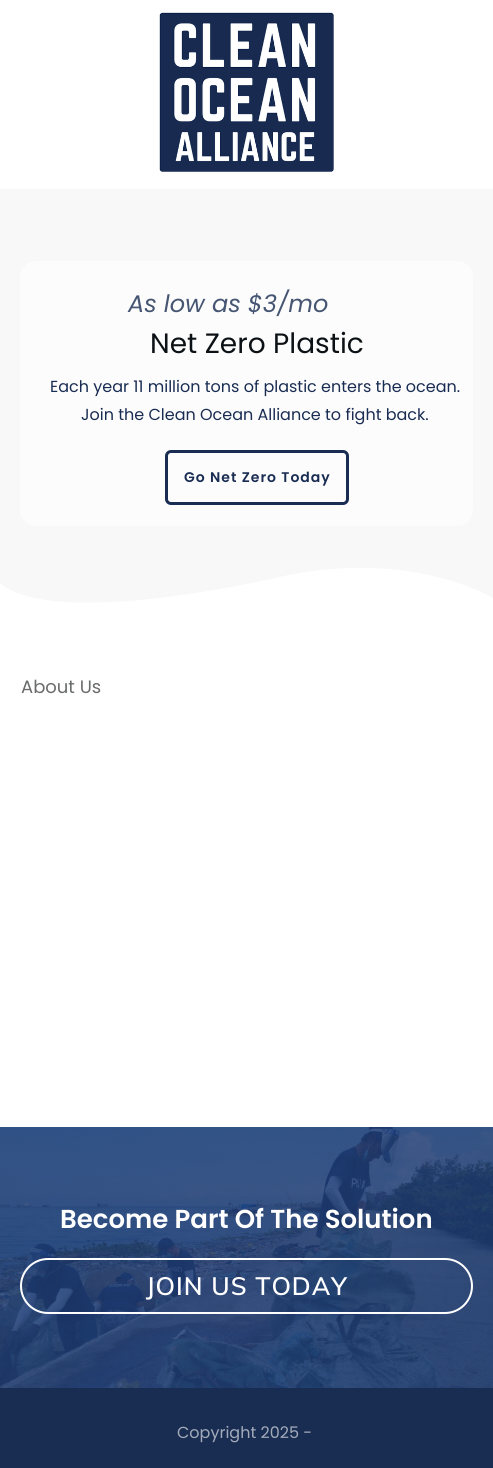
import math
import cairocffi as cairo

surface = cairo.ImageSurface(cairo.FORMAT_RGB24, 493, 1468)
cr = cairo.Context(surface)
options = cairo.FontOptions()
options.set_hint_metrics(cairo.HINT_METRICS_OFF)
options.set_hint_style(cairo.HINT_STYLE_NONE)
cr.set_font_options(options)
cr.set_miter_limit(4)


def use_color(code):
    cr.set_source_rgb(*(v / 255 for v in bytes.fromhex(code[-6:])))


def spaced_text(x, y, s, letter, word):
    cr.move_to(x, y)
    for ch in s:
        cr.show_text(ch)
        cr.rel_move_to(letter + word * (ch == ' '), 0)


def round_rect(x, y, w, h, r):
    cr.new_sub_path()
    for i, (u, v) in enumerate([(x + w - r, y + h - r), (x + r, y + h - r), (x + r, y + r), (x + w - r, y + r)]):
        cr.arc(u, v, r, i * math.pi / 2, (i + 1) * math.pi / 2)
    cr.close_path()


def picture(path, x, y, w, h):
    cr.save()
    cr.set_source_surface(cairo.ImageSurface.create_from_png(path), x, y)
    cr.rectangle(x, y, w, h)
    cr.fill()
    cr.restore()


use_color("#ffffff")
cr.paint()
picture("img1.png", 159, 12, 175, 160)
use_color("#f8f8f8")
cr.rectangle(0, 189, 493, 414)
cr.fill()
cr.save()
cr.rectangle(0, 568, 493, 41)
cr.clip()
use_color("#ffffff")
cr.new_path()
cr.move_to(493, 598)
cr.curve_to(493, 598, 413, 549, 284, 576)
cr.curve_to(284, 576, 56, 631, 0, 583)
cr.line_to(0, 609)
cr.line_to(493, 609)
cr.close_path()
cr.fill()
cr.restore()
use_color("#fcfcfc")
round_rect(20, 261, 453, 265, 16)
cr.fill()
cr.select_font_face("Poppins", cairo.FONT_SLANT_ITALIC)
cr.set_font_size(24)
use_color("#455572")
cr.move_to(128, 312)
cr.show_text("As low as $3/mo")
cr.select_font_face("Poppins")
cr.set_font_size(28)
use_color("#0c1115")
cr.move_to(150, 353)
cr.show_text("Net Zero Plastic")
cr.set_font_size(16)
use_color("#192c52")
cr.move_to(50, 392)
cr.show_text("Each year 11 million tons of plastic enters the ocean.")
cr.move_to(81, 420)
cr.show_text("Join the Clean Ocean Alliance to fight back.")
round_rect(166.5, 451.5, 181, 52, 4.5)
cr.set_line_width(3)
cr.stroke()
cr.select_font_face("Poppins SemiBold")
cr.set_font_size(14)
spaced_text(184, 482, "Go Net Zero Today", 1, 0)
cr.select_font_face("Poppins")
cr.set_font_size(18)
use_color("#6a6b6c")
cr.move_to(21, 693)
cr.show_text("About Us")
picture("img2.png", 0, 1127, 493, 261)
cr.select_font_face("Poppins SemiBold")
cr.set_font_size(26)
use_color("#ffffff")
cr.move_to(60, 1228)
cr.show_text("Become Part Of The Solution")
round_rect(21, 1259, 451, 54, 27)
cr.set_line_width(2)
cr.stroke()
cr.select_font_face("Muli SemiBold")
cr.set_font_size(25)
spaced_text(146, 1295, "JOIN US TODAY", 1, 0)
use_color("#192c52")
cr.rectangle(0, 1388, 493, 80)
cr.fill()
cr.select_font_face("Poppins")
cr.set_font_size(16)
use_color("#a3abba")
cr.move_to(177, 1438)
cr.show_text("Copyright 2025 -")
surface.write_to_png("result.png")
